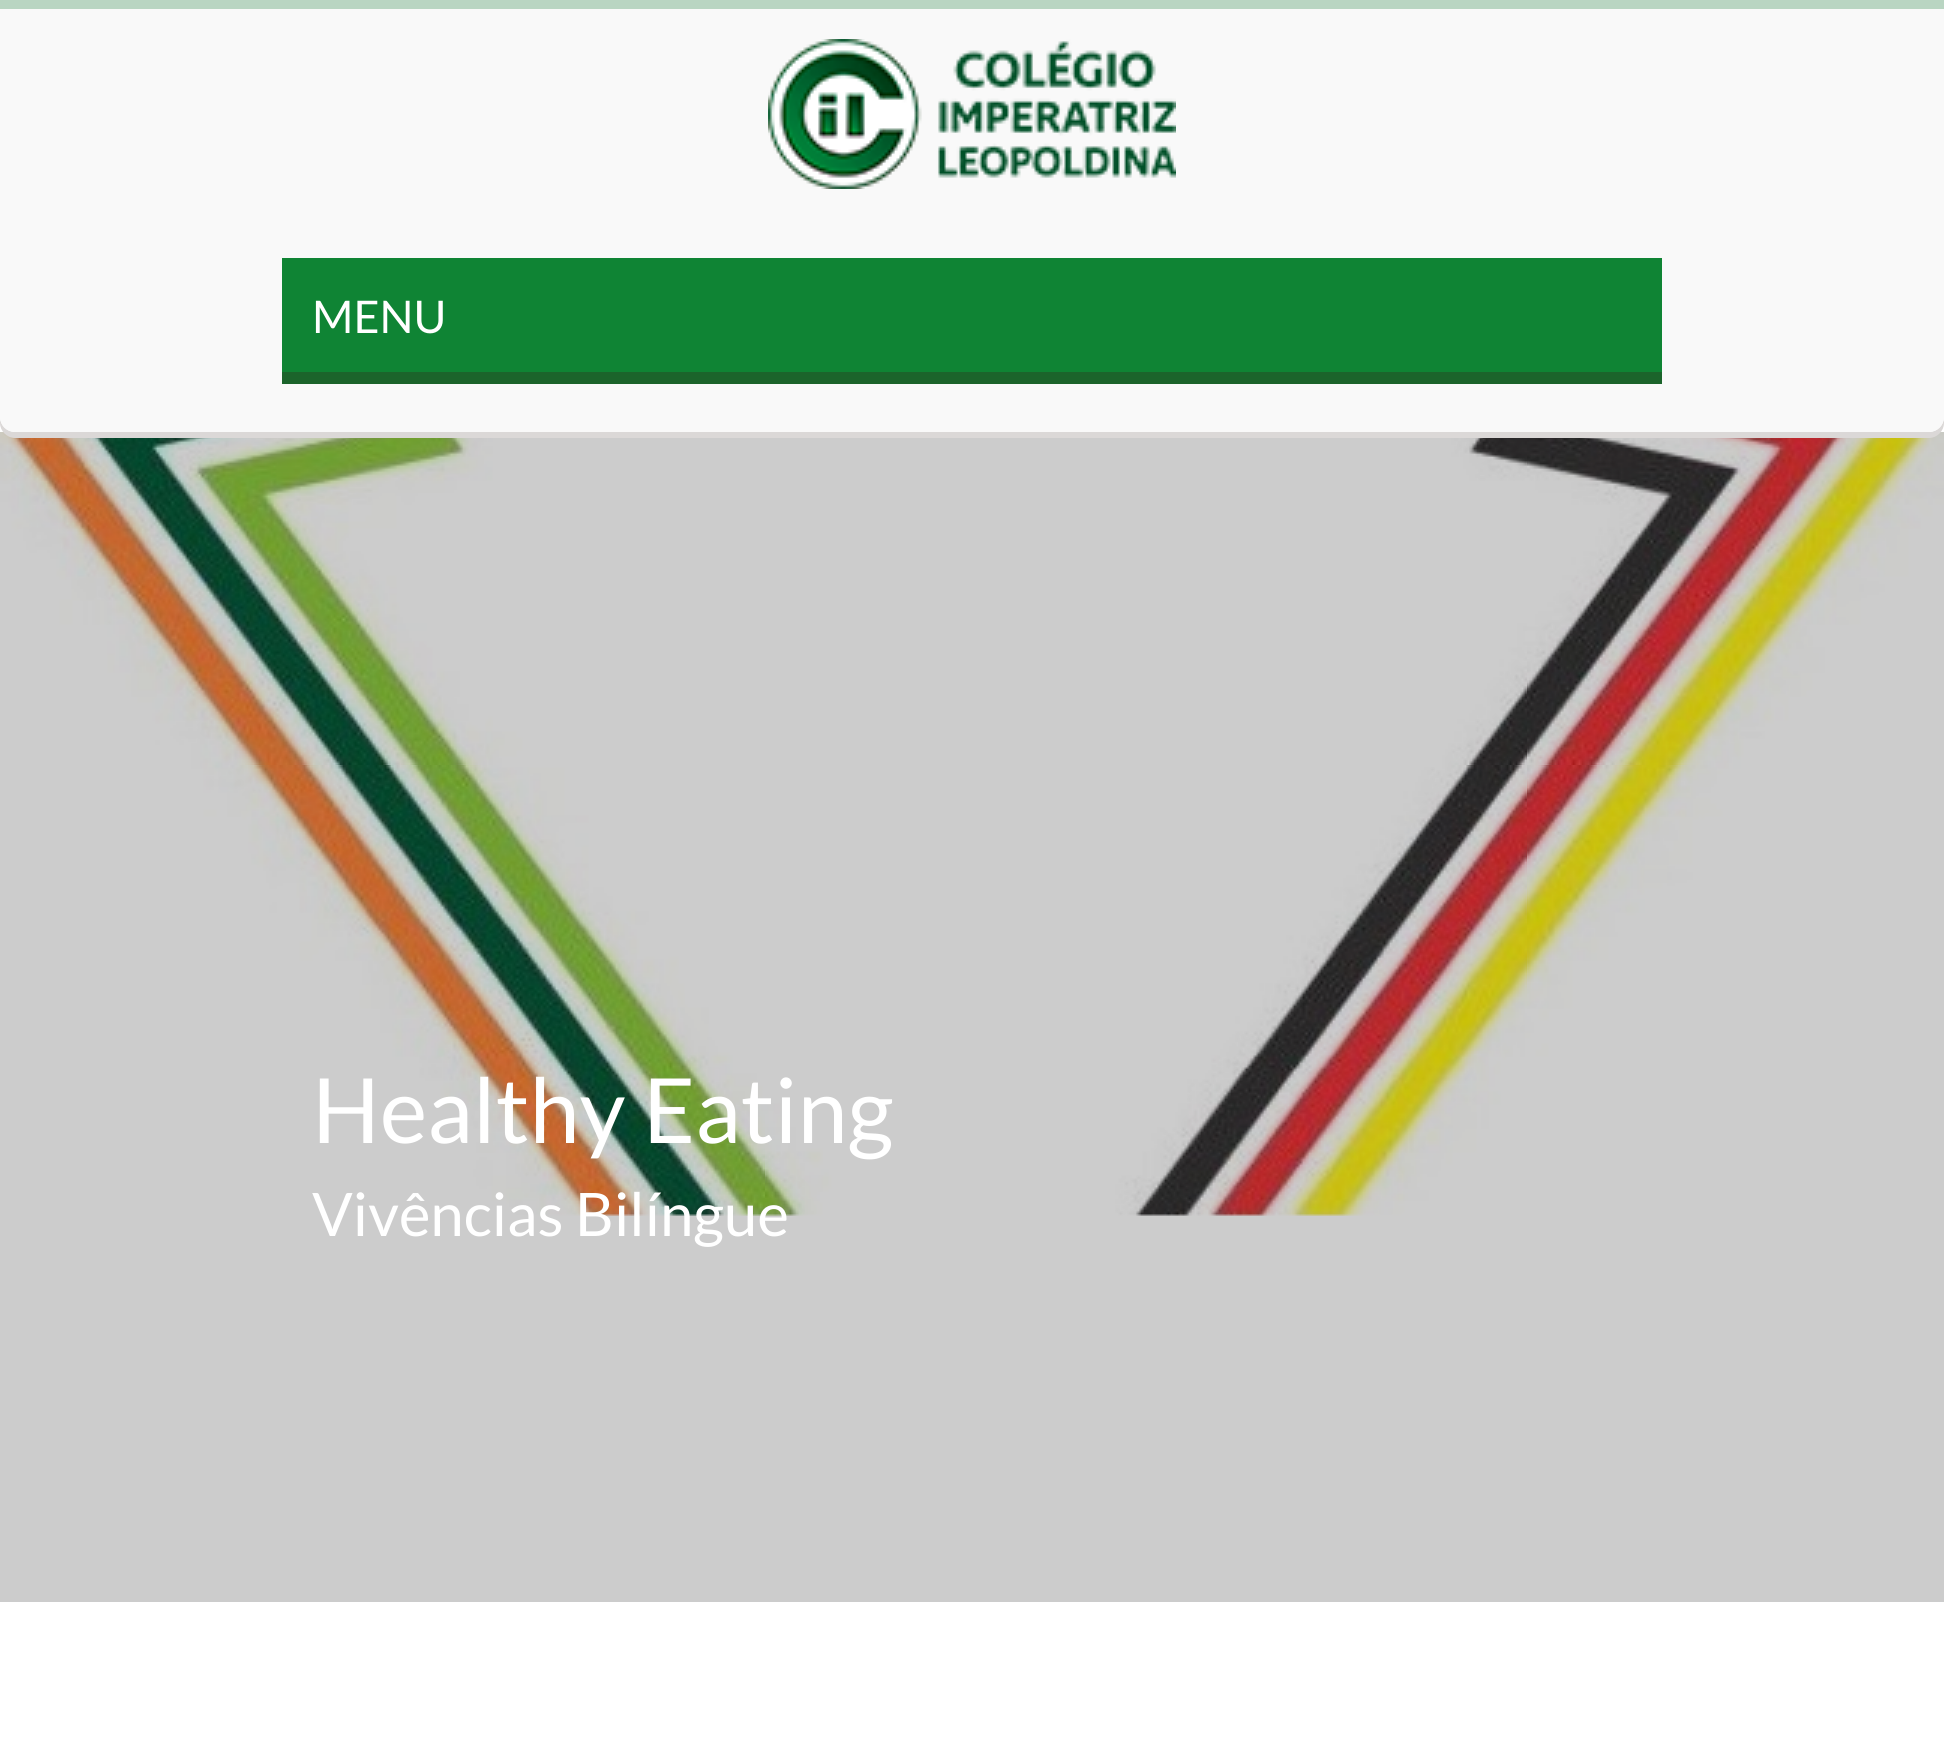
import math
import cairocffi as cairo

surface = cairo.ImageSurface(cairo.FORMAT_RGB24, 1944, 1755)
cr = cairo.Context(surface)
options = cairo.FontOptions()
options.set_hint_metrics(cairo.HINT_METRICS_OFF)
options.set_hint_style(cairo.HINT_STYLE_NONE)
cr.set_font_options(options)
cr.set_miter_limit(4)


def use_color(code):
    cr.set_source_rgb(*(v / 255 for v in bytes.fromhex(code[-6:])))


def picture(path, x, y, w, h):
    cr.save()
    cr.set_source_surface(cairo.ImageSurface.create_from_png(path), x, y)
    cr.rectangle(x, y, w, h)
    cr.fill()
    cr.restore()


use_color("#ffffff")
cr.paint()
use_color("#cccccc")
cr.rectangle(0, 1214, 1944, 388)
cr.fill()
use_color("#b9d5c2")
cr.rectangle(0, 0, 1944, 9)
cr.fill()
picture("img2.png", 0, 432, 1944, 784)
use_color("#dbd8d7")
cr.new_path()
cr.move_to(0, 417)
cr.line_to(0, 423)
cr.curve_to(0, 431, 7, 438, 15, 438)
cr.line_to(1929, 438)
cr.curve_to(1937, 438, 1944, 431, 1944, 423)
cr.line_to(1944, 417)
cr.curve_to(1944, 425, 1937, 432, 1929, 432)
cr.line_to(15, 432)
cr.curve_to(7, 432, 0, 425, 0, 417)
cr.close_path()
cr.fill()
use_color("#f9f9f9")
cr.new_path()
cr.move_to(0, 9)
cr.line_to(1944, 9)
cr.line_to(1944, 417)
cr.curve_to(1944, 425.5, 1937.5, 432, 1929, 432)
cr.line_to(15, 432)
cr.curve_to(6.5, 432, 0, 425.5, 0, 417)
cr.close_path()
cr.fill()
picture("img1.png", 768, 39, 408, 150)
use_color("#1b642b")
cr.rectangle(282, 372, 1380, 12)
cr.fill()
use_color("#0f8434")
cr.rectangle(282, 258, 1380, 114)
cr.fill()
cr.select_font_face("Lato")
cr.set_font_size(45)
use_color("#ffffff")
cr.move_to(312, 333)
cr.show_text("MENU")
cr.set_font_size(90)
cr.move_to(312, 1143)
cr.show_text("Healthy Eating")
cr.set_font_size(60)
cr.move_to(312, 1236)
cr.show_text("Vivências Bilíngue")
surface.write_to_png("result.png")
